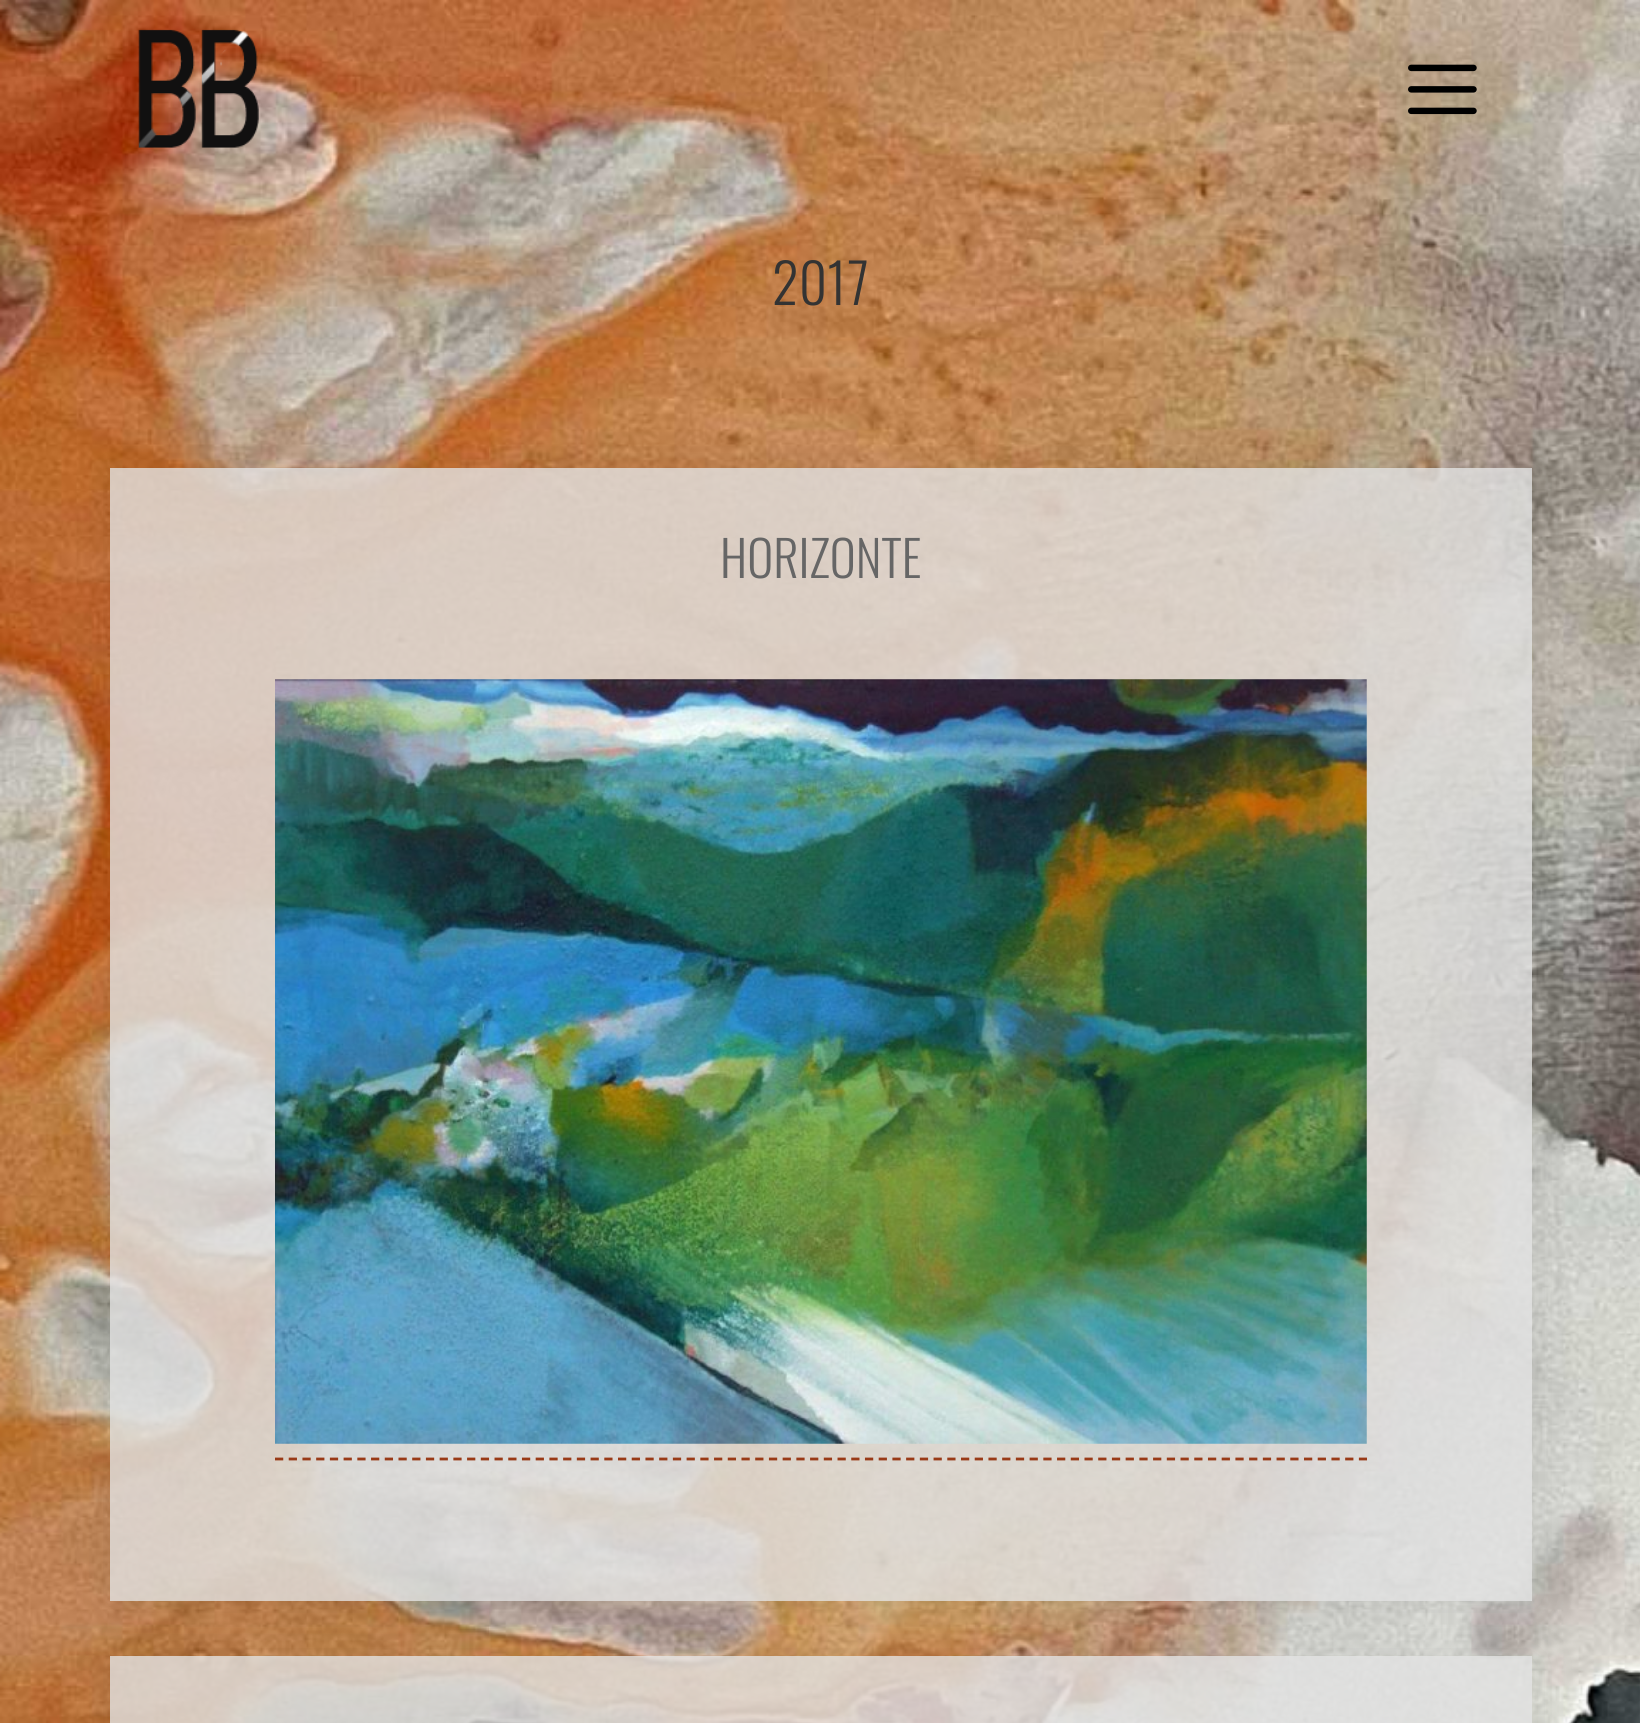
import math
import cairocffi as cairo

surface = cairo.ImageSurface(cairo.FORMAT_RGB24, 1640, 1723)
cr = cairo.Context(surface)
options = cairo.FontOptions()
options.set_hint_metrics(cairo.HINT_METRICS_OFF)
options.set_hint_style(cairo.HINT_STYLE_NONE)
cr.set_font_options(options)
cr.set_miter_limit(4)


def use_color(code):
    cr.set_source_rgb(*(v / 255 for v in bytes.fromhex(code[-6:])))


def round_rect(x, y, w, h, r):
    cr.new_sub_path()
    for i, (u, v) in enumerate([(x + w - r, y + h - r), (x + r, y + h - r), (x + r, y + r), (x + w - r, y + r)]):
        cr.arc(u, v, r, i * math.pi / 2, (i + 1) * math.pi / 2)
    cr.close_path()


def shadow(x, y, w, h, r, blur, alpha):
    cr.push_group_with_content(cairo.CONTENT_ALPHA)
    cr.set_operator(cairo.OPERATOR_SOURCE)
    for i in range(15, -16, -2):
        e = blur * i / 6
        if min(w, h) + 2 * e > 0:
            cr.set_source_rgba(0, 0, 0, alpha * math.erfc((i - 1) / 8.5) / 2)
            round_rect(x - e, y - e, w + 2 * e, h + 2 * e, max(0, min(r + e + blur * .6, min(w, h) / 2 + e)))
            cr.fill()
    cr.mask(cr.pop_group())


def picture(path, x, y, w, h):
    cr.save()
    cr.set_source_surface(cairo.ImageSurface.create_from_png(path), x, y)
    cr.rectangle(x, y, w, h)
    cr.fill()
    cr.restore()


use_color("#ffffff")
cr.paint()
picture("img1.png", 0, 0, 1640, 1723)
picture("img2.png", 138, 29, 121, 119)
picture("img3.png", 1408, 64, 69, 51)
cr.select_font_face("Oswald Light")
cr.set_font_size(55)
use_color("#333333")
cr.move_to(772, 305)
cr.show_text("2017")
cr.save()
cr.set_fill_rule(cairo.FILL_RULE_EVEN_ODD)
cr.new_path()
cr.move_to(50, 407)
cr.line_to(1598, 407)
cr.line_to(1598, 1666)
cr.line_to(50, 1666)
cr.close_path()
cr.move_to(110, 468)
cr.line_to(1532, 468)
cr.line_to(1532, 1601)
cr.line_to(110, 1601)
cr.close_path()
cr.clip()
use_color("#000000")
shadow(113, 470, 1422, 1133, 0, 20.5, 0.1)
cr.restore()
cr.set_source_rgba(0.882, 0.882, 0.882, 0.8)
cr.rectangle(110, 468, 1422, 1133)
cr.fill()
cr.set_font_size(49.5)
use_color("#666666")
cr.move_to(720, 578)
cr.show_text("HORIZONTE")
picture("img4.png", 275, 679, 1092, 765)
cr.new_path()
cr.move_to(275, 1459)
cr.line_to(1367, 1459)
use_color("#993a17")
cr.set_line_width(2.8)
cr.set_dash([8.25, 5.47])
cr.stroke()
cr.save()
cr.set_fill_rule(cairo.FILL_RULE_EVEN_ODD)
cr.new_path()
cr.move_to(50, 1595)
cr.line_to(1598, 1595)
cr.line_to(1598, 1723)
cr.line_to(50, 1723)
cr.close_path()
cr.move_to(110, 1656)
cr.line_to(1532, 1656)
cr.line_to(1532, 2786)
cr.line_to(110, 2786)
cr.close_path()
cr.clip()
use_color("#000000")
shadow(113, 1658, 1422, 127, 0, 20.5, 0.1)
cr.restore()
cr.set_source_rgba(0.882, 0.882, 0.882, 0.8)
cr.rectangle(110, 1656, 1422, 67)
cr.fill()
surface.write_to_png("result.png")
